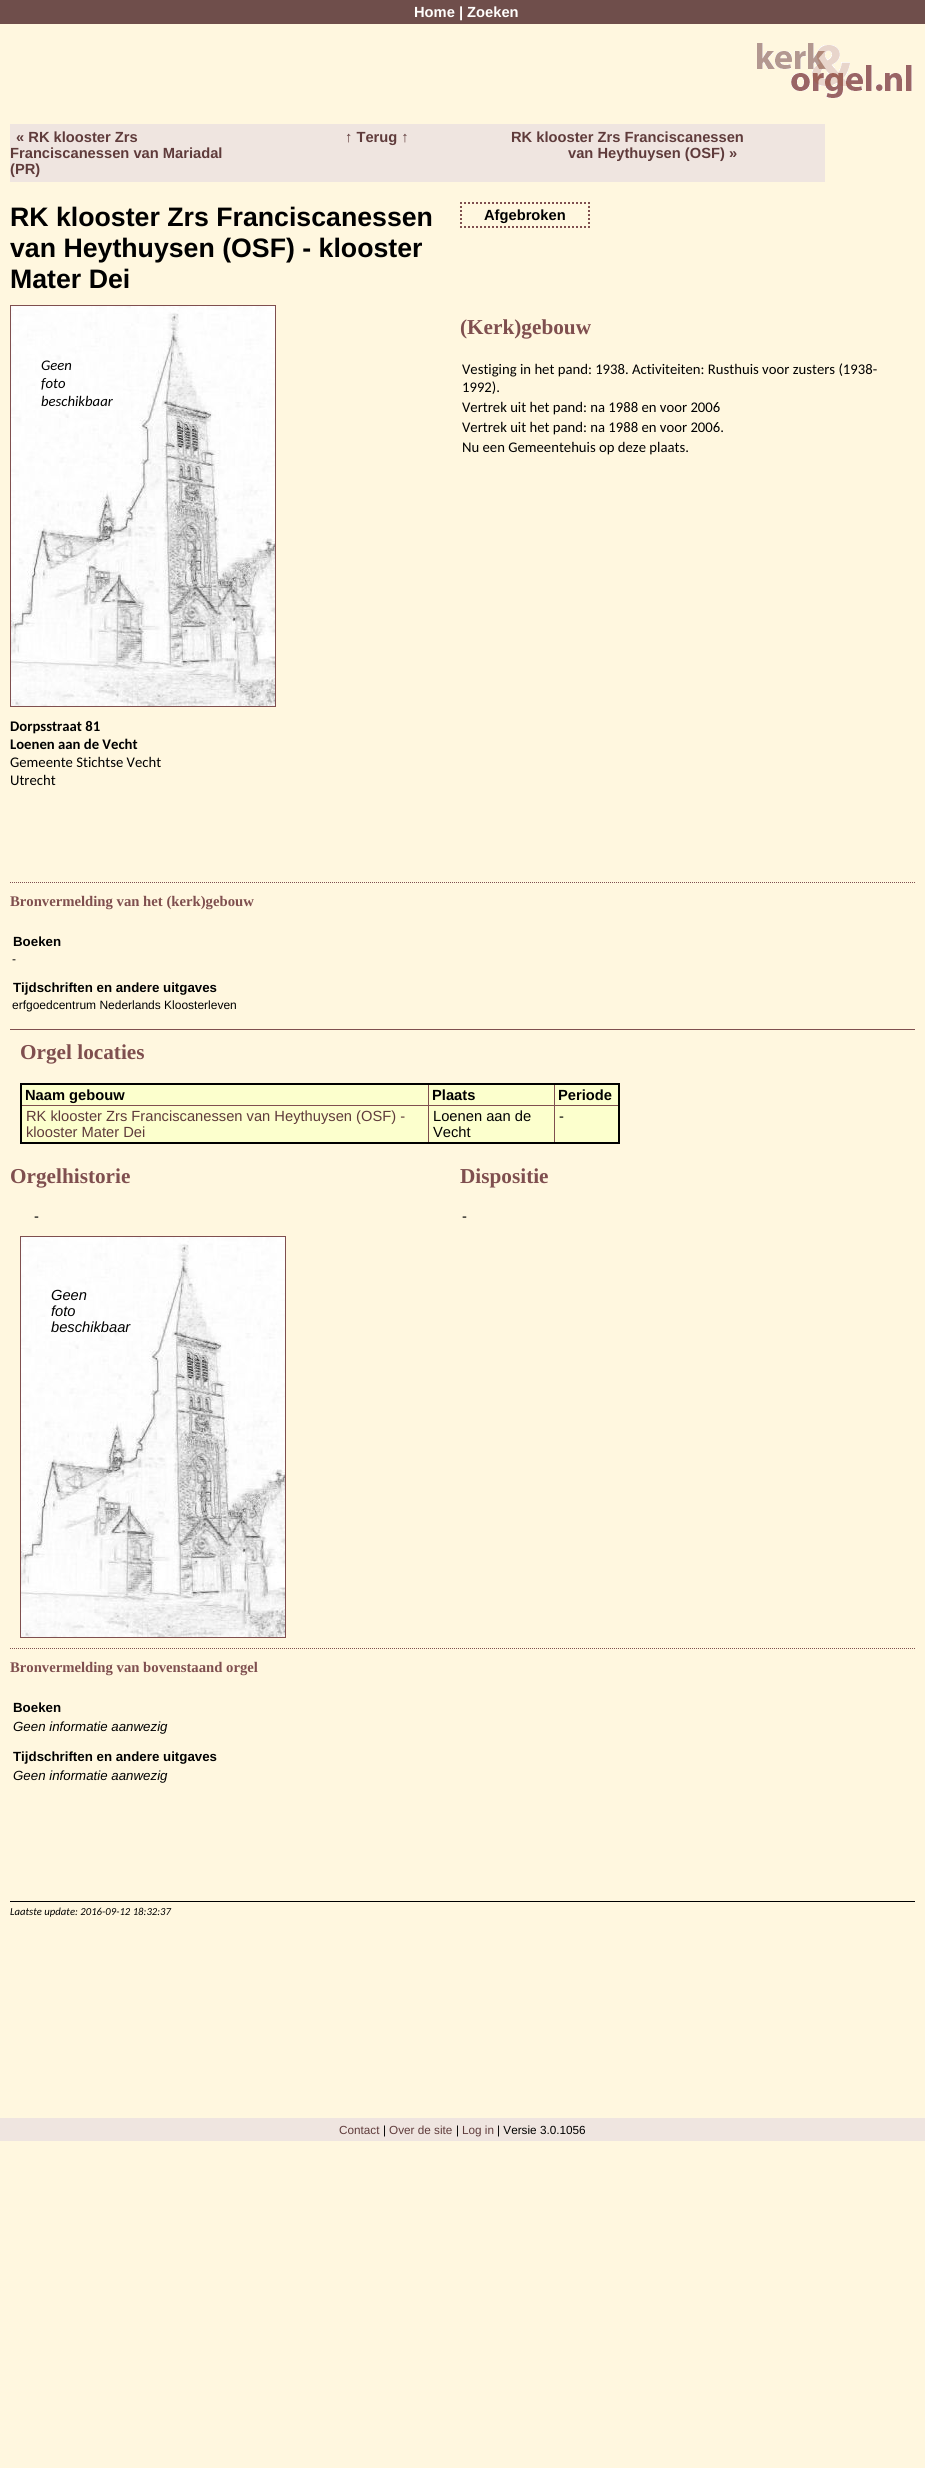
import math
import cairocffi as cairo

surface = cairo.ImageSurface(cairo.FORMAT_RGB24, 925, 2468)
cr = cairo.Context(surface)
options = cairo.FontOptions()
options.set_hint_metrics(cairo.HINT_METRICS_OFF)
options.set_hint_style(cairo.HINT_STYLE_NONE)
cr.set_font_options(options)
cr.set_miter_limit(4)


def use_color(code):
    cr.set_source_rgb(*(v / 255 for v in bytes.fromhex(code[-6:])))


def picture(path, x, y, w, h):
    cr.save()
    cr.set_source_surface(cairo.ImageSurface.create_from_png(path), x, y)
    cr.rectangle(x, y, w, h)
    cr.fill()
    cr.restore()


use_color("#fff7df")
cr.paint()
use_color("#6f4e4b")
cr.rectangle(0, 0, 925, 24)
cr.fill()
cr.select_font_face("Liberation Sans", cairo.FONT_SLANT_NORMAL, cairo.FONT_WEIGHT_BOLD)
cr.set_font_size(14.7)
use_color("#fffefc")
cr.move_to(414, 17)
cr.show_text("Home | Zoeken")
picture("img1.png", 757, 43, 155, 55)
use_color("#efe5e0")
cr.rectangle(10, 124, 815, 58)
cr.fill()
use_color("#5f3b3b")
cr.move_to(16, 142)
cr.show_text("« RK klooster Zrs")
cr.move_to(10, 158)
cr.show_text("Franciscanessen van Mariadal")
cr.move_to(10, 174)
cr.show_text("(PR)")
cr.move_to(345, 142)
cr.show_text("↑ Terug ↑")
cr.move_to(511, 142)
cr.show_text("RK klooster Zrs Franciscanessen")
cr.move_to(568, 158)
cr.show_text("van Heythuysen (OSF) »")
cr.set_font_size(26.7)
use_color("#000000")
cr.move_to(10, 226)
cr.show_text("RK klooster Zrs Franciscanessen")
cr.move_to(10, 257)
cr.show_text("van Heythuysen (OSF) - klooster")
cr.move_to(10, 288)
cr.show_text("Mater Dei")
cr.new_path()
cr.move_to(460, 203)
cr.line_to(590, 203)
use_color("#7f4f4f")
cr.set_dash([2, 2])
cr.stroke()
cr.new_path()
cr.move_to(589, 202)
cr.line_to(589, 228)
cr.stroke()
cr.new_path()
cr.move_to(460, 227)
cr.line_to(590, 227)
cr.stroke()
cr.new_path()
cr.move_to(461, 202)
cr.line_to(461, 228)
cr.stroke()
cr.set_font_size(14.7)
use_color("#000000")
cr.move_to(484, 220)
cr.show_text("Afgebroken")
picture("img2.png", 11, 306, 264, 400)
cr.rectangle(10.5, 305.5, 265, 401)
use_color("#7f4f4f")
cr.set_line_width(1)
cr.set_dash([])
cr.stroke()
cr.select_font_face("Carlito", cairo.FONT_SLANT_ITALIC)
use_color("#000000")
cr.move_to(41, 370)
cr.show_text("Geen")
cr.move_to(41, 388)
cr.show_text("foto")
cr.move_to(41, 406)
cr.show_text("beschikbaar")
cr.select_font_face("Carlito", cairo.FONT_SLANT_NORMAL, cairo.FONT_WEIGHT_BOLD)
cr.move_to(10, 731)
cr.show_text("Dorpsstraat 81")
cr.move_to(10, 749)
cr.show_text("Loenen aan de Vecht")
cr.select_font_face("Carlito")
cr.move_to(10, 767)
cr.show_text("Gemeente Stichtse Vecht")
cr.move_to(10, 785)
cr.show_text("Utrecht")
cr.select_font_face("Liberation Serif", cairo.FONT_SLANT_NORMAL, cairo.FONT_WEIGHT_BOLD)
cr.set_font_size(21.25)
use_color("#7f4f4f")
cr.move_to(460, 334)
cr.show_text("(Kerk)gebouw")
cr.select_font_face("Carlito")
cr.set_font_size(14.7)
use_color("#000000")
cr.move_to(462, 374)
cr.show_text("Vestiging in het pand: 1938. Activiteiten: Rusthuis voor zusters (1938-")
cr.move_to(462, 392)
cr.show_text("1992).")
cr.move_to(462, 412)
cr.show_text("Vertrek uit het pand: na 1988 en voor 2006")
cr.move_to(462, 432)
cr.show_text("Vertrek uit het pand: na 1988 en voor 2006.")
cr.move_to(462, 452)
cr.show_text("Nu een Gemeentehuis op deze plaats.")
cr.new_path()
cr.move_to(10, 882.5)
cr.line_to(915, 882.5)
use_color("#7f4f4f")
cr.set_dash([1, 1])
cr.stroke()
cr.select_font_face("Liberation Serif", cairo.FONT_SLANT_NORMAL, cairo.FONT_WEIGHT_BOLD)
cr.move_to(10, 906)
cr.show_text("Bronvermelding van het (kerk)gebouw")
cr.select_font_face("Liberation Sans", cairo.FONT_SLANT_NORMAL, cairo.FONT_WEIGHT_BOLD)
cr.set_font_size(13.3)
use_color("#000000")
cr.move_to(13, 946)
cr.show_text("Boeken")
cr.select_font_face("Liberation Sans")
cr.set_font_size(12)
cr.move_to(12, 963)
cr.show_text("-")
cr.select_font_face("Liberation Sans", cairo.FONT_SLANT_NORMAL, cairo.FONT_WEIGHT_BOLD)
cr.set_font_size(13.3)
cr.move_to(13, 992)
cr.show_text("Tijdschriften en andere uitgaves")
cr.select_font_face("Liberation Sans")
cr.set_font_size(12)
cr.move_to(12, 1009)
cr.show_text("erfgoedcentrum Nederlands Kloosterleven")
use_color("#7f4f4f")
cr.rectangle(10, 1029, 905, 1)
cr.fill()
cr.select_font_face("Liberation Serif", cairo.FONT_SLANT_NORMAL, cairo.FONT_WEIGHT_BOLD)
cr.set_font_size(21.25)
cr.move_to(20, 1059)
cr.show_text("Orgel locaties")
use_color("#fcffcd")
cr.rectangle(22, 1085, 596, 57)
cr.fill()
use_color("#7f4f4f")
cr.rectangle(554, 1105, 66, 1)
cr.fill()
cr.rectangle(554, 1105, 1, 38)
cr.fill()
cr.rectangle(428, 1105, 127, 1)
cr.fill()
cr.rectangle(428, 1105, 1, 38)
cr.fill()
cr.rectangle(21, 1105, 408, 1)
cr.fill()
cr.rectangle(428, 1083, 1, 23)
cr.fill()
cr.rectangle(554, 1083, 1, 23)
cr.fill()
use_color("#000000")
cr.rectangle(20, 1083, 600, 2)
cr.fill()
cr.rectangle(618, 1083, 2, 61)
cr.fill()
cr.rectangle(20, 1142, 600, 2)
cr.fill()
cr.rectangle(20, 1083, 2, 61)
cr.fill()
cr.select_font_face("Liberation Sans", cairo.FONT_SLANT_NORMAL, cairo.FONT_WEIGHT_BOLD)
cr.set_font_size(14.7)
cr.move_to(25, 1100)
cr.show_text("Naam gebouw")
cr.move_to(432, 1100)
cr.show_text("Plaats")
cr.move_to(558, 1100)
cr.show_text("Periode")
cr.select_font_face("Liberation Sans")
use_color("#5f3b3b")
cr.move_to(26, 1121)
cr.show_text("RK klooster Zrs Franciscanessen van Heythuysen (OSF) -")
cr.move_to(26, 1137)
cr.show_text("klooster Mater Dei")
use_color("#000000")
cr.move_to(433, 1121)
cr.show_text("Loenen aan de")
cr.move_to(433, 1137)
cr.show_text("Vecht")
cr.move_to(559, 1121)
cr.show_text("-")
cr.select_font_face("Liberation Serif", cairo.FONT_SLANT_NORMAL, cairo.FONT_WEIGHT_BOLD)
cr.set_font_size(21.25)
use_color("#7f4f4f")
cr.move_to(10, 1183)
cr.show_text("Orgelhistorie")
cr.select_font_face("Liberation Sans")
cr.set_font_size(14.7)
use_color("#000000")
cr.move_to(34, 1221)
cr.show_text("-")
cr.select_font_face("Liberation Serif", cairo.FONT_SLANT_NORMAL, cairo.FONT_WEIGHT_BOLD)
cr.set_font_size(21.25)
use_color("#7f4f4f")
cr.move_to(460, 1183)
cr.show_text("Dispositie")
cr.select_font_face("Liberation Sans")
cr.set_font_size(14.7)
use_color("#000000")
cr.move_to(462, 1221)
cr.show_text("-")
picture("img2.png", 21, 1237, 264, 400)
cr.rectangle(20.5, 1236.5, 265, 401)
use_color("#7f4f4f")
cr.set_dash([])
cr.stroke()
cr.select_font_face("Liberation Sans", cairo.FONT_SLANT_ITALIC)
use_color("#000000")
cr.move_to(51, 1300)
cr.show_text("Geen")
cr.move_to(51, 1316)
cr.show_text("foto")
cr.move_to(51, 1332)
cr.show_text("beschikbaar")
cr.new_path()
cr.move_to(10, 1648.5)
cr.line_to(915, 1648.5)
use_color("#7f4f4f")
cr.set_dash([1, 1])
cr.stroke()
cr.select_font_face("Liberation Serif", cairo.FONT_SLANT_NORMAL, cairo.FONT_WEIGHT_BOLD)
cr.move_to(10, 1672)
cr.show_text("Bronvermelding van bovenstaand orgel")
cr.select_font_face("Liberation Sans", cairo.FONT_SLANT_NORMAL, cairo.FONT_WEIGHT_BOLD)
cr.set_font_size(13.3)
use_color("#000000")
cr.move_to(13, 1712)
cr.show_text("Boeken")
cr.select_font_face("Liberation Sans", cairo.FONT_SLANT_ITALIC)
cr.move_to(13, 1731)
cr.show_text("Geen informatie aanwezig")
cr.select_font_face("Liberation Sans", cairo.FONT_SLANT_NORMAL, cairo.FONT_WEIGHT_BOLD)
cr.move_to(13, 1761)
cr.show_text("Tijdschriften en andere uitgaves")
cr.select_font_face("Liberation Sans", cairo.FONT_SLANT_ITALIC)
cr.move_to(13, 1780)
cr.show_text("Geen informatie aanwezig")
cr.rectangle(10, 1901, 905, 1)
cr.fill()
cr.select_font_face("Carlito", cairo.FONT_SLANT_ITALIC)
cr.set_font_size(10.7)
cr.move_to(10, 1915)
cr.show_text("Laatste update: 2016-09-12 18:32:37")
use_color("#efe5e0")
cr.rectangle(0, 2118, 925, 23)
cr.fill()
cr.select_font_face("Liberation Sans")
cr.set_font_size(11.75)
use_color("#5f3b3b")
cr.move_to(339, 2134)
cr.show_text("Contact")
use_color("#000000")
cr.move_to(383, 2134)
cr.show_text("|")
use_color("#5f3b3b")
cr.move_to(389, 2134)
cr.show_text("Over de site")
use_color("#000000")
cr.move_to(456, 2134)
cr.show_text("|")
use_color("#5f3b3b")
cr.move_to(462, 2134)
cr.show_text("Log in")
use_color("#000000")
cr.move_to(497, 2134)
cr.show_text("| Versie 3.0.1056")
surface.write_to_png("result.png")
